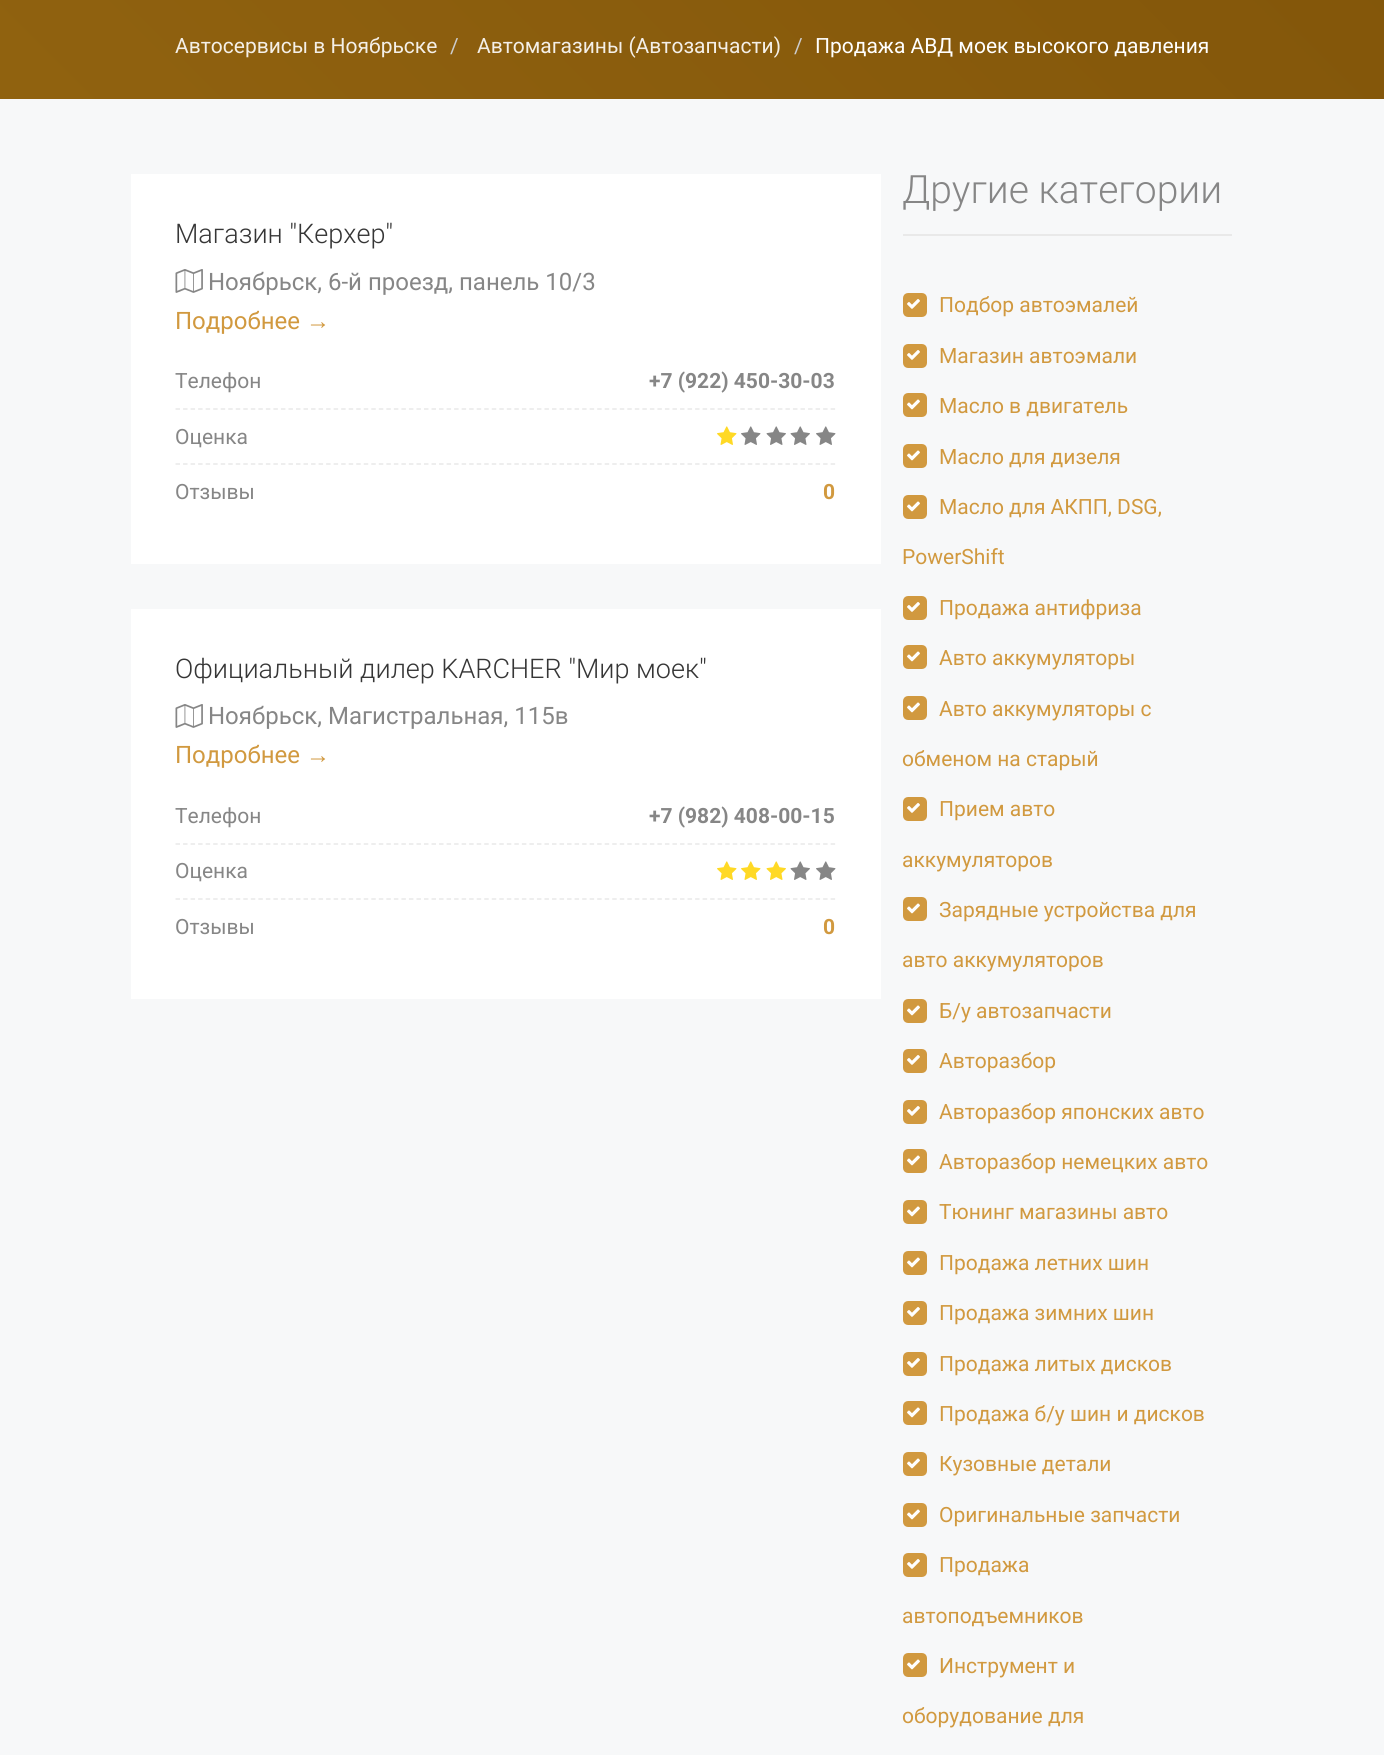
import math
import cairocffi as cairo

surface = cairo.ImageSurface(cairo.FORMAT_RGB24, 1384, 1755)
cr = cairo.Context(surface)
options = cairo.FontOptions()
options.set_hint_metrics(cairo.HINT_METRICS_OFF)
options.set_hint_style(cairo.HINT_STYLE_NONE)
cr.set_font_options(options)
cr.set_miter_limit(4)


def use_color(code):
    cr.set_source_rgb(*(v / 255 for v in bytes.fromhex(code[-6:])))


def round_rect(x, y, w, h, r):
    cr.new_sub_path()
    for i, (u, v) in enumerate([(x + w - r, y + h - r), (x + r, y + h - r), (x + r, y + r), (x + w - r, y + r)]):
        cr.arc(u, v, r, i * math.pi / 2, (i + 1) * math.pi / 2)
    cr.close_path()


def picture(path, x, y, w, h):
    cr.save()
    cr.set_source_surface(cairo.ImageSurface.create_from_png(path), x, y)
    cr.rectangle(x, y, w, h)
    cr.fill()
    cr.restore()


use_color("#f7f8f9")
cr.paint()
gradient = cairo.LinearGradient(-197, 896, 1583, -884)
gradient.add_color_stop_rgba(0, 0.6, 0.416, 0.075, 1)
gradient.add_color_stop_rgba(1, 0.478, 0.306, 0.024, 1)
cr.set_source(gradient)
cr.rectangle(0, 0, 1384, 99)
cr.fill()
cr.select_font_face("Roboto")
cr.set_font_size(21)
use_color("#f4efe7")
cr.move_to(175, 53)
cr.show_text("Автосервисы в Ноябрьске")
use_color("#cccccc")
cr.move_to(450, 53)
cr.show_text("/")
use_color("#f4efe7")
cr.move_to(477, 53)
cr.show_text("Автомагазины (Автозапчасти)")
use_color("#cccccc")
cr.move_to(794, 53)
cr.show_text("/")
use_color("#ffffff")
cr.move_to(815, 53)
cr.show_text("Продажа АВД моек высокого давления")
cr.rectangle(131, 174, 750, 390)
cr.fill()
cr.select_font_face("Roboto Light")
cr.set_font_size(27)
use_color("#363636")
cr.move_to(175, 243)
cr.show_text("Магазин \"Керхер\"")
picture("img1.png", 175, 269, 28, 24)
cr.select_font_face("Roboto")
cr.set_font_size(24)
use_color("#868686")
cr.move_to(208, 290)
cr.show_text("Ноябрьск, 6-й проезд, панель 10/3")
use_color("#d1993f")
cr.move_to(175, 329)
cr.show_text("Подробнее")
cr.select_font_face("Liberation Serif")
cr.move_to(306, 329)
cr.show_text("→")
cr.select_font_face("Roboto")
cr.set_font_size(21)
use_color("#868686")
cr.move_to(175, 388)
cr.show_text("Телефон")
cr.new_path()
cr.move_to(175.5, 409)
cr.line_to(835.5, 409)
use_color("#e9e9e9")
cr.set_line_width(1.5)
cr.set_dash([4.5, 3.03])
cr.stroke()
cr.select_font_face("Roboto", cairo.FONT_SLANT_NORMAL, cairo.FONT_WEIGHT_BOLD)
use_color("#868686")
cr.move_to(649, 388)
cr.show_text("+7 (922) 450-30-03")
cr.new_path()
cr.move_to(175.5, 464)
cr.line_to(835.5, 464)
use_color("#e9e9e9")
cr.stroke()
picture("img2.png", 717, 426, 20, 19)
picture("img3.png", 741, 426, 20, 19)
picture("img4.png", 766, 426, 20, 19)
picture("img4.png", 790, 426, 20, 19)
picture("img3.png", 816, 426, 20, 19)
cr.select_font_face("Roboto")
use_color("#868686")
cr.move_to(175, 444)
cr.show_text("Оценка")
cr.move_to(175, 499)
cr.show_text("Отзывы")
cr.select_font_face("Roboto", cairo.FONT_SLANT_NORMAL, cairo.FONT_WEIGHT_BOLD)
use_color("#d1993f")
cr.move_to(823, 499)
cr.show_text("0")
use_color("#ffffff")
cr.rectangle(131, 609, 750, 390)
cr.fill()
cr.select_font_face("Roboto Light")
cr.set_font_size(27)
use_color("#363636")
cr.move_to(175, 678)
cr.show_text("Официальный дилер KARCHER \"Мир моек\"")
picture("img1.png", 175, 704, 28, 24)
cr.select_font_face("Roboto")
cr.set_font_size(24)
use_color("#868686")
cr.move_to(208, 724)
cr.show_text("Ноябрьск, Магистральная, 115в")
use_color("#d1993f")
cr.move_to(175, 763)
cr.show_text("Подробнее")
cr.select_font_face("Liberation Serif")
cr.move_to(306, 763)
cr.show_text("→")
cr.select_font_face("Roboto")
cr.set_font_size(21)
use_color("#868686")
cr.move_to(175, 823)
cr.show_text("Телефон")
cr.new_path()
cr.move_to(175.5, 844)
cr.line_to(835.5, 844)
use_color("#e9e9e9")
cr.stroke()
cr.select_font_face("Roboto", cairo.FONT_SLANT_NORMAL, cairo.FONT_WEIGHT_BOLD)
use_color("#868686")
cr.move_to(649, 823)
cr.show_text("+7 (982) 408-00-15")
cr.new_path()
cr.move_to(175.5, 899)
cr.line_to(835.5, 899)
use_color("#e9e9e9")
cr.stroke()
picture("img2.png", 717, 861, 20, 19)
picture("img2.png", 741, 861, 20, 19)
picture("img5.png", 766, 861, 20, 19)
picture("img4.png", 790, 861, 20, 19)
picture("img3.png", 816, 861, 20, 19)
cr.select_font_face("Roboto")
use_color("#868686")
cr.move_to(175, 878)
cr.show_text("Оценка")
cr.move_to(175, 934)
cr.show_text("Отзывы")
cr.select_font_face("Roboto", cairo.FONT_SLANT_NORMAL, cairo.FONT_WEIGHT_BOLD)
use_color("#d1993f")
cr.move_to(823, 934)
cr.show_text("0")
use_color("#e9e9e9")
cr.rectangle(903, 234, 329, 2)
cr.fill()
cr.select_font_face("Roboto Light")
cr.set_font_size(39)
use_color("#868686")
cr.move_to(902, 203)
cr.show_text("Другие категории")
use_color("#d1993f")
round_rect(904.5, 294.5, 21, 21, 3.5)
cr.fill_preserve()
cr.set_line_width(3)
cr.set_dash([])
cr.stroke()
picture("img6.png", 907, 299, 13, 10)
cr.select_font_face("Roboto")
cr.set_font_size(21)
cr.move_to(939, 312)
cr.show_text("Подбор автоэмалей")
round_rect(904.5, 345.5, 21, 21, 3.5)
cr.fill_preserve()
cr.stroke()
picture("img6.png", 907, 350, 13, 10)
cr.move_to(939, 363)
cr.show_text("Магазин автоэмали")
round_rect(904.5, 394.5, 21, 21, 3.5)
cr.fill_preserve()
cr.stroke()
picture("img7.png", 907, 399, 13, 11)
cr.move_to(939, 413)
cr.show_text("Масло в двигатель")
round_rect(904.5, 445.5, 21, 21, 3.5)
cr.fill_preserve()
cr.stroke()
picture("img7.png", 907, 450, 13, 11)
cr.move_to(939, 464)
cr.show_text("Масло для дизеля")
round_rect(904.5, 496.5, 21, 21, 3.5)
cr.fill_preserve()
cr.stroke()
picture("img7.png", 907, 501, 13, 11)
cr.move_to(939, 514)
cr.show_text("Масло для АКПП, DSG,")
cr.move_to(902, 564)
cr.show_text("PowerShift")
round_rect(904.5, 597.5, 21, 21, 3.5)
cr.fill_preserve()
cr.stroke()
picture("img6.png", 907, 602, 13, 10)
cr.move_to(939, 615)
cr.show_text("Продажа антифриза")
round_rect(904.5, 646.5, 21, 21, 3.5)
cr.fill_preserve()
cr.stroke()
picture("img7.png", 907, 651, 13, 11)
cr.move_to(939, 665)
cr.show_text("Авто аккумуляторы")
round_rect(904.5, 697.5, 21, 21, 3.5)
cr.fill_preserve()
cr.stroke()
picture("img7.png", 907, 702, 13, 11)
cr.move_to(939, 716)
cr.show_text("Авто аккумуляторы с")
cr.move_to(902, 766)
cr.show_text("обменом на старый")
round_rect(904.5, 798.5, 21, 21, 3.5)
cr.fill_preserve()
cr.stroke()
picture("img6.png", 907, 803, 13, 10)
cr.move_to(939, 816)
cr.show_text("Прием авто")
cr.move_to(902, 867)
cr.show_text("аккумуляторов")
round_rect(904.5, 898.5, 21, 21, 3.5)
cr.fill_preserve()
cr.stroke()
picture("img7.png", 907, 903, 13, 11)
cr.move_to(939, 917)
cr.show_text("Зарядные устройства для")
cr.move_to(902, 967)
cr.show_text("авто аккумуляторов")
round_rect(904.5, 1000.5, 21, 21, 3.5)
cr.fill_preserve()
cr.stroke()
picture("img7.png", 907, 1005, 13, 11)
cr.move_to(939, 1018)
cr.show_text("Б/у автозапчасти")
round_rect(904.5, 1050.5, 21, 21, 3.5)
cr.fill_preserve()
cr.stroke()
picture("img6.png", 907, 1055, 13, 10)
cr.move_to(939, 1068)
cr.show_text("Авторазбор")
round_rect(904.5, 1101.5, 21, 21, 3.5)
cr.fill_preserve()
cr.stroke()
picture("img6.png", 907, 1106, 13, 10)
cr.move_to(939, 1119)
cr.show_text("Авторазбор японских авто")
round_rect(904.5, 1150.5, 21, 21, 3.5)
cr.fill_preserve()
cr.stroke()
picture("img7.png", 907, 1155, 13, 11)
cr.move_to(939, 1169)
cr.show_text("Авторазбор немецких авто")
round_rect(904.5, 1201.5, 21, 21, 3.5)
cr.fill_preserve()
cr.stroke()
picture("img7.png", 907, 1206, 13, 11)
cr.move_to(939, 1219)
cr.show_text("Тюнинг магазины авто")
round_rect(904.5, 1252.5, 21, 21, 3.5)
cr.fill_preserve()
cr.stroke()
picture("img7.png", 907, 1257, 13, 11)
cr.move_to(939, 1270)
cr.show_text("Продажа летних шин")
round_rect(904.5, 1302.5, 21, 21, 3.5)
cr.fill_preserve()
cr.stroke()
picture("img6.png", 907, 1307, 13, 10)
cr.move_to(939, 1320)
cr.show_text("Продажа зимних шин")
round_rect(904.5, 1353.5, 21, 21, 3.5)
cr.fill_preserve()
cr.stroke()
picture("img6.png", 907, 1358, 13, 10)
cr.move_to(939, 1371)
cr.show_text("Продажа литых дисков")
round_rect(904.5, 1402.5, 21, 21, 3.5)
cr.fill_preserve()
cr.stroke()
picture("img7.png", 907, 1407, 13, 11)
cr.move_to(939, 1421)
cr.show_text("Продажа б/у шин и дисков")
round_rect(904.5, 1453.5, 21, 21, 3.5)
cr.fill_preserve()
cr.stroke()
picture("img7.png", 907, 1458, 13, 11)
cr.move_to(939, 1471)
cr.show_text("Кузовные детали")
round_rect(904.5, 1504.5, 21, 21, 3.5)
cr.fill_preserve()
cr.stroke()
picture("img7.png", 907, 1509, 13, 11)
cr.move_to(939, 1522)
cr.show_text("Оригинальные запчасти")
round_rect(904.5, 1554.5, 21, 21, 3.5)
cr.fill_preserve()
cr.stroke()
picture("img6.png", 907, 1559, 13, 10)
cr.move_to(939, 1572)
cr.show_text("Продажа")
cr.move_to(902, 1623)
cr.show_text("автоподъемников")
round_rect(904.5, 1654.5, 21, 21, 3.5)
cr.fill_preserve()
cr.stroke()
picture("img7.png", 907, 1659, 13, 11)
cr.move_to(939, 1673)
cr.show_text("Инструмент и")
cr.move_to(902, 1723)
cr.show_text("оборудование для")
surface.write_to_png("result.png")
